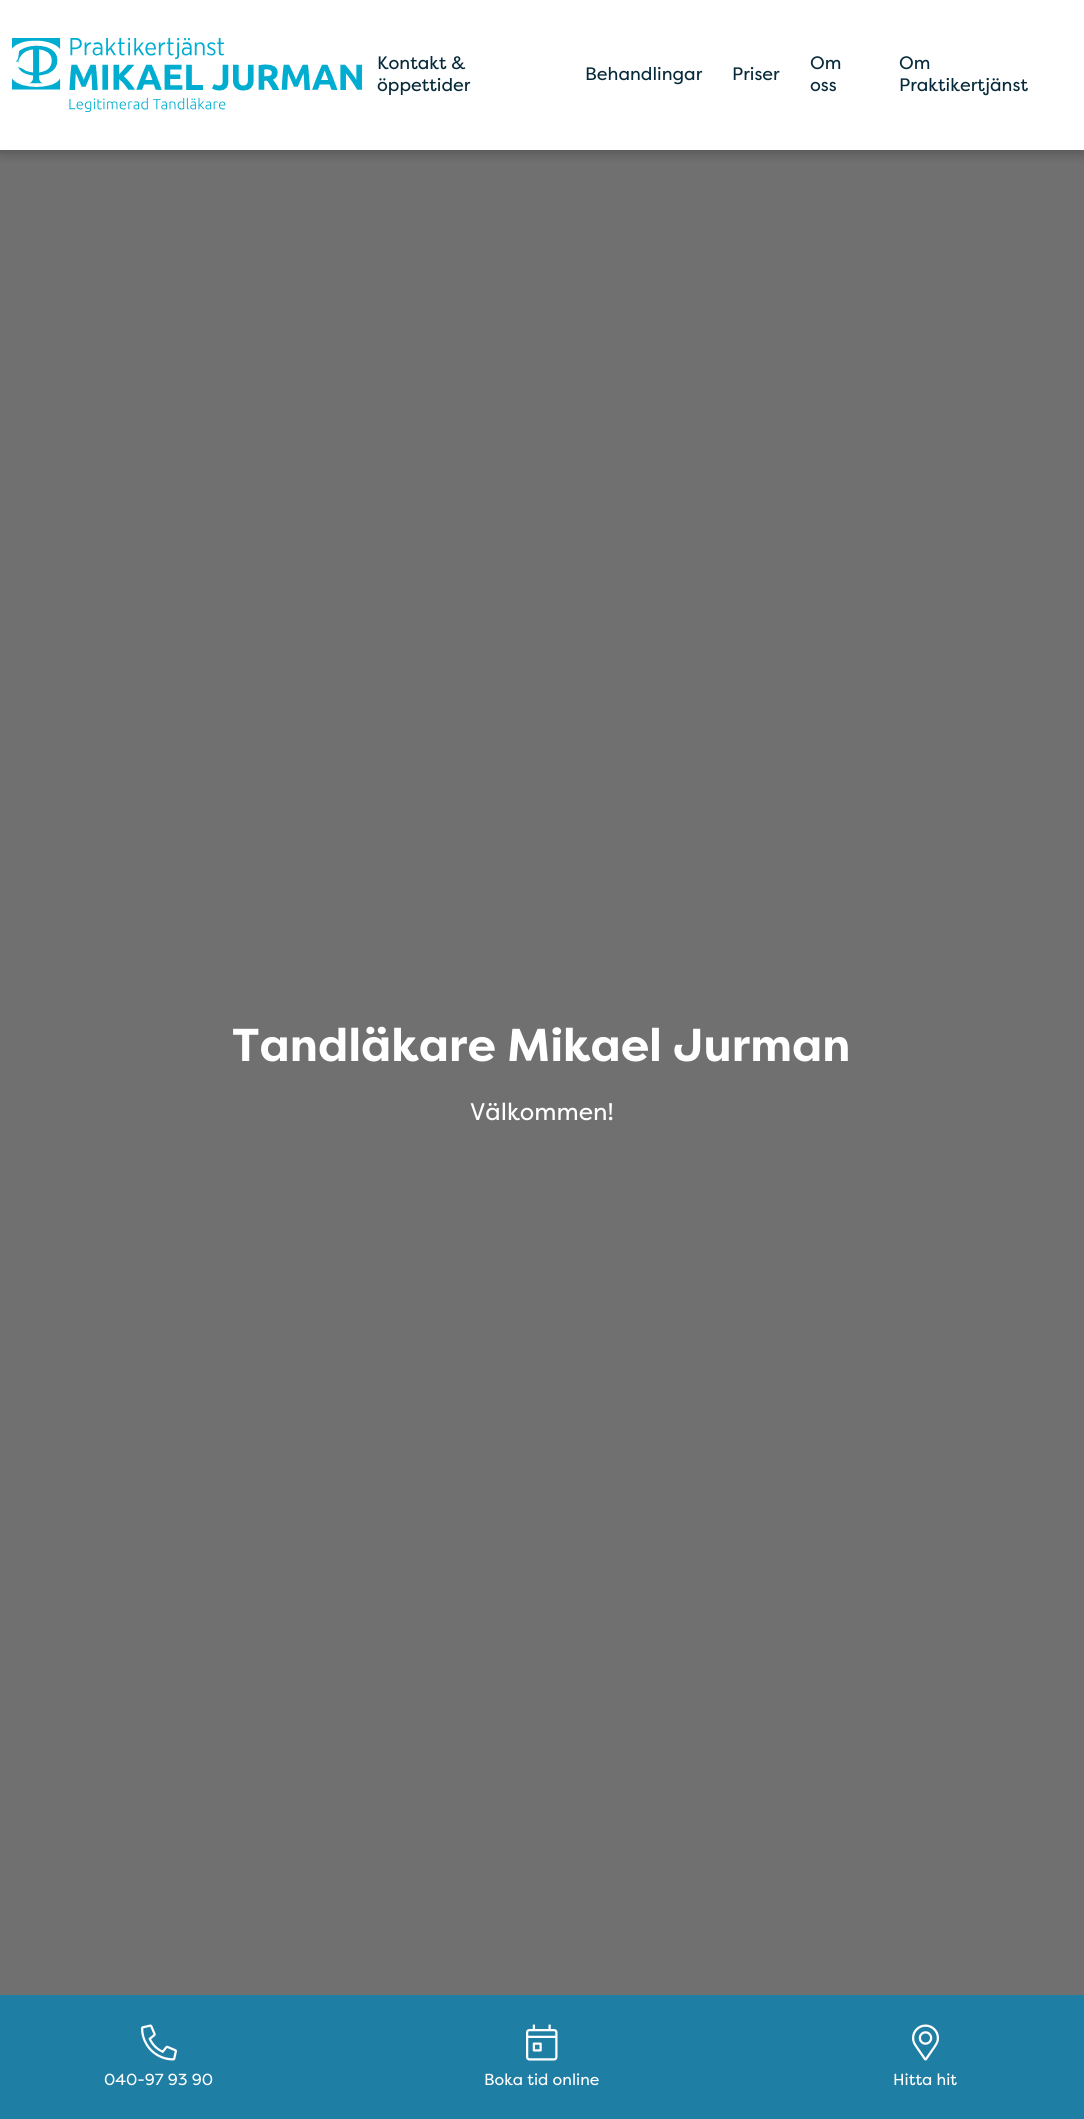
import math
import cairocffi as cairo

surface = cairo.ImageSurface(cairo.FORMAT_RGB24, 1084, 2119)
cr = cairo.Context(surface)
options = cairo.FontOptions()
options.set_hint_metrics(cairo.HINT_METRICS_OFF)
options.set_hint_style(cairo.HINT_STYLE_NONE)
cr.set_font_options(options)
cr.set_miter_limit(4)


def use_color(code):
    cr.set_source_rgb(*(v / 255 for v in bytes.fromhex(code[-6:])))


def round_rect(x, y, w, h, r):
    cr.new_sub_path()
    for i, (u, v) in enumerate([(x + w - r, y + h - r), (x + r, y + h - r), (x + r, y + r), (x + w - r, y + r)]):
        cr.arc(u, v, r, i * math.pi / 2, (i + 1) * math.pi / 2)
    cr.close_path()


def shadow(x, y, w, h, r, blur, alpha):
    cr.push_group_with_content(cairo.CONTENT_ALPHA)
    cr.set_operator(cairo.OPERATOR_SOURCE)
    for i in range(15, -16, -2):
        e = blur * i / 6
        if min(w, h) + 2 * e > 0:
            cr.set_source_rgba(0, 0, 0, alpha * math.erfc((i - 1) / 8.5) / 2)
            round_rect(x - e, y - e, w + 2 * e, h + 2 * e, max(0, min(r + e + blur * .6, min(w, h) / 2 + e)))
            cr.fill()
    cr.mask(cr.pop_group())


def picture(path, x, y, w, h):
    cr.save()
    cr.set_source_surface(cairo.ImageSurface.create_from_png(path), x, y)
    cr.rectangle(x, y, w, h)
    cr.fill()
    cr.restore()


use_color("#ffffff")
cr.paint()
use_color("#707070")
cr.rectangle(0, 150, 1084, 1845)
cr.fill()
cr.save()
cr.rectangle(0, 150, 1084, 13)
cr.clip()
use_color("#202020")
shadow(0, 0, 1084, 150, 0, 7.5, 0.5)
cr.restore()
picture("img1.png", 12, 38, 350, 74)
cr.select_font_face("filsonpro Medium")
cr.set_font_size(18)
use_color("#072a3a")
cr.move_to(377, 69)
cr.show_text("Kontakt &")
cr.move_to(377, 91)
cr.show_text("öppettider")
cr.move_to(585, 80)
cr.show_text("Behandlingar")
cr.move_to(732, 80)
cr.show_text("Priser")
cr.move_to(810, 69)
cr.show_text("Om")
cr.move_to(810, 91)
cr.show_text("oss")
cr.move_to(899, 69)
cr.show_text("Om")
cr.move_to(899, 91)
cr.show_text("Praktikertjänst")
cr.select_font_face("filsonpro", cairo.FONT_SLANT_NORMAL, cairo.FONT_WEIGHT_BOLD)
cr.set_font_size(46)
use_color("#ffffff")
cr.move_to(232, 1061)
cr.show_text("Tandläkare Mikael Jurman")
cr.select_font_face("filsonpro Medium")
cr.set_font_size(24)
cr.move_to(470, 1120)
cr.show_text("Välkommen!")
use_color("#1f7ea4")
cr.rectangle(0, 1995, 1084, 124)
cr.fill()
picture("img2.png", 141, 2024, 36, 37)
cr.set_font_size(16)
use_color("#ffffff")
cr.move_to(104, 2085)
cr.show_text("040-97 93 90")
picture("img3.png", 526, 2024, 32, 37)
cr.move_to(484, 2085)
cr.show_text("Boka tid online")
picture("img4.png", 912, 2024, 27, 37)
cr.move_to(893, 2085)
cr.show_text("Hitta hit")
surface.write_to_png("result.png")
